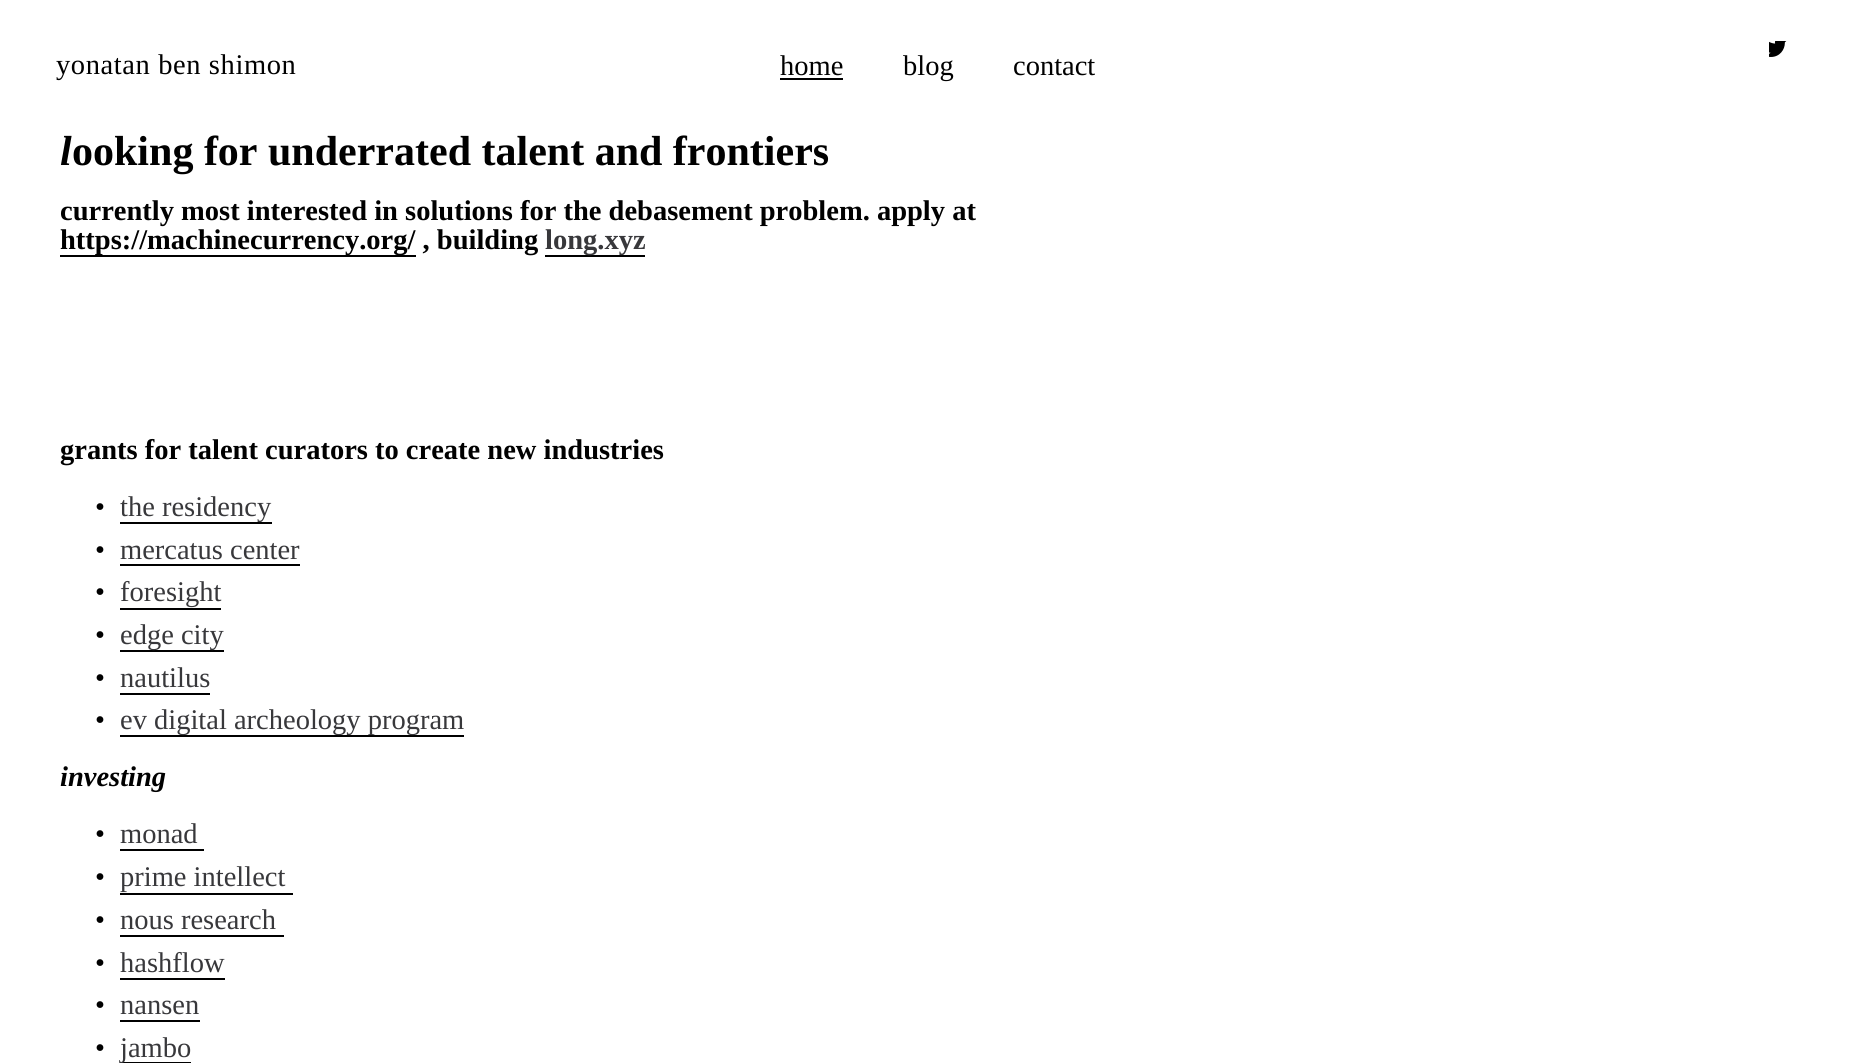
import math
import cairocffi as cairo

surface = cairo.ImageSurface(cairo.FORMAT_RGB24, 1872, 1063)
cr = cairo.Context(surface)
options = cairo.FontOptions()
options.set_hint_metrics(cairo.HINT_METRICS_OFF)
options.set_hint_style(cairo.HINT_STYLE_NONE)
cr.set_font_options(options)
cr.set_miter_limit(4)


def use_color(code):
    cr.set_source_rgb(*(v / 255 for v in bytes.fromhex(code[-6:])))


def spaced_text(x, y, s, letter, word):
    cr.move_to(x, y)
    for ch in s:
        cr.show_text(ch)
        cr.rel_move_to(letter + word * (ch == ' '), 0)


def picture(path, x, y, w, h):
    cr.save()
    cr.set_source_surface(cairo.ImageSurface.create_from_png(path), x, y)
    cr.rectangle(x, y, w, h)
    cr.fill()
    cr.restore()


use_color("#ffffff")
cr.paint()
picture("img1.png", 1769, 41, 18, 16)
cr.select_font_face("Liberation Serif")
cr.set_font_size(28.5)
use_color("#000000")
spaced_text(56, 74, "yonatan ben shimon", 0.6, 0)
cr.rectangle(780, 78, 63, 2)
cr.fill()
cr.move_to(780, 75)
cr.show_text("home")
cr.move_to(903, 75)
cr.show_text("blog")
cr.move_to(1013, 75)
cr.show_text("contact")
cr.select_font_face("Liberation Serif", cairo.FONT_SLANT_ITALIC, cairo.FONT_WEIGHT_BOLD)
cr.set_font_size(42)
cr.move_to(60, 165)
cr.show_text("l")
cr.select_font_face("Liberation Serif", cairo.FONT_SLANT_NORMAL, cairo.FONT_WEIGHT_BOLD)
cr.move_to(72, 165)
cr.show_text("ooking for underrated talent and frontiers")
cr.set_font_size(28.5)
cr.move_to(60, 220)
cr.show_text("currently most interested in solutions for the debasement problem. apply at")
cr.rectangle(60, 255, 356, 2)
cr.fill()
cr.move_to(60, 249)
cr.show_text("https://machinecurrency.org/ , building")
cr.rectangle(545, 255, 100, 2)
cr.fill()
use_color("#38383b")
cr.move_to(545, 249)
cr.show_text("long.xyz")
use_color("#000000")
cr.move_to(60, 459)
cr.show_text("grants for talent curators to create new industries")
cr.select_font_face("Liberation Serif")
cr.move_to(95, 516)
cr.show_text("•")
cr.rectangle(120, 522, 152, 2)
cr.fill()
use_color("#38383b")
cr.move_to(120, 516)
cr.show_text("the residency")
use_color("#000000")
cr.move_to(95, 559)
cr.show_text("•")
use_color("#38383b")
cr.move_to(120, 559)
cr.show_text("mercatus center")
use_color("#000000")
cr.rectangle(120, 564, 180, 2)
cr.fill()
cr.move_to(95, 601)
cr.show_text("•")
use_color("#38383b")
cr.move_to(120, 601)
cr.show_text("foresight")
use_color("#000000")
cr.rectangle(120, 608, 101, 2)
cr.fill()
cr.move_to(95, 644)
cr.show_text("•")
cr.rectangle(120, 650, 104, 2)
cr.fill()
use_color("#38383b")
cr.move_to(120, 644)
cr.show_text("edge city")
use_color("#000000")
cr.move_to(95, 687)
cr.show_text("•")
use_color("#38383b")
cr.move_to(120, 687)
cr.show_text("nautilus")
use_color("#000000")
cr.rectangle(120, 693, 90, 2)
cr.fill()
cr.move_to(95, 729)
cr.show_text("•")
cr.rectangle(120, 735, 344, 2)
cr.fill()
use_color("#38383b")
cr.move_to(120, 729)
cr.show_text("ev digital archeology program")
cr.select_font_face("Liberation Serif", cairo.FONT_SLANT_ITALIC, cairo.FONT_WEIGHT_BOLD)
use_color("#000000")
cr.move_to(60, 786)
cr.show_text("investing")
cr.select_font_face("Liberation Serif")
cr.move_to(95, 843)
cr.show_text("•")
use_color("#38383b")
cr.move_to(120, 843)
cr.show_text("monad")
use_color("#000000")
cr.rectangle(120, 849, 84, 2)
cr.fill()
cr.move_to(95, 886)
cr.show_text("•")
use_color("#38383b")
cr.move_to(120, 886)
cr.show_text("prime intellect")
use_color("#000000")
cr.rectangle(120, 893, 173, 2)
cr.fill()
cr.move_to(95, 929)
cr.show_text("•")
use_color("#38383b")
cr.move_to(120, 929)
cr.show_text("nous research")
use_color("#000000")
cr.rectangle(120, 935, 164, 2)
cr.fill()
cr.move_to(95, 972)
cr.show_text("•")
use_color("#38383b")
cr.move_to(120, 972)
cr.show_text("hashflow")
use_color("#000000")
cr.rectangle(120, 978, 105, 2)
cr.fill()
cr.move_to(95, 1014)
cr.show_text("•")
use_color("#38383b")
cr.move_to(120, 1014)
cr.show_text("nansen")
use_color("#000000")
cr.rectangle(120, 1020, 80, 2)
cr.fill()
cr.move_to(95, 1057)
cr.show_text("•")
cr.rectangle(120, 1062, 71, 1)
cr.fill()
use_color("#38383b")
cr.move_to(120, 1057)
cr.show_text("jambo")
surface.write_to_png("result.png")
